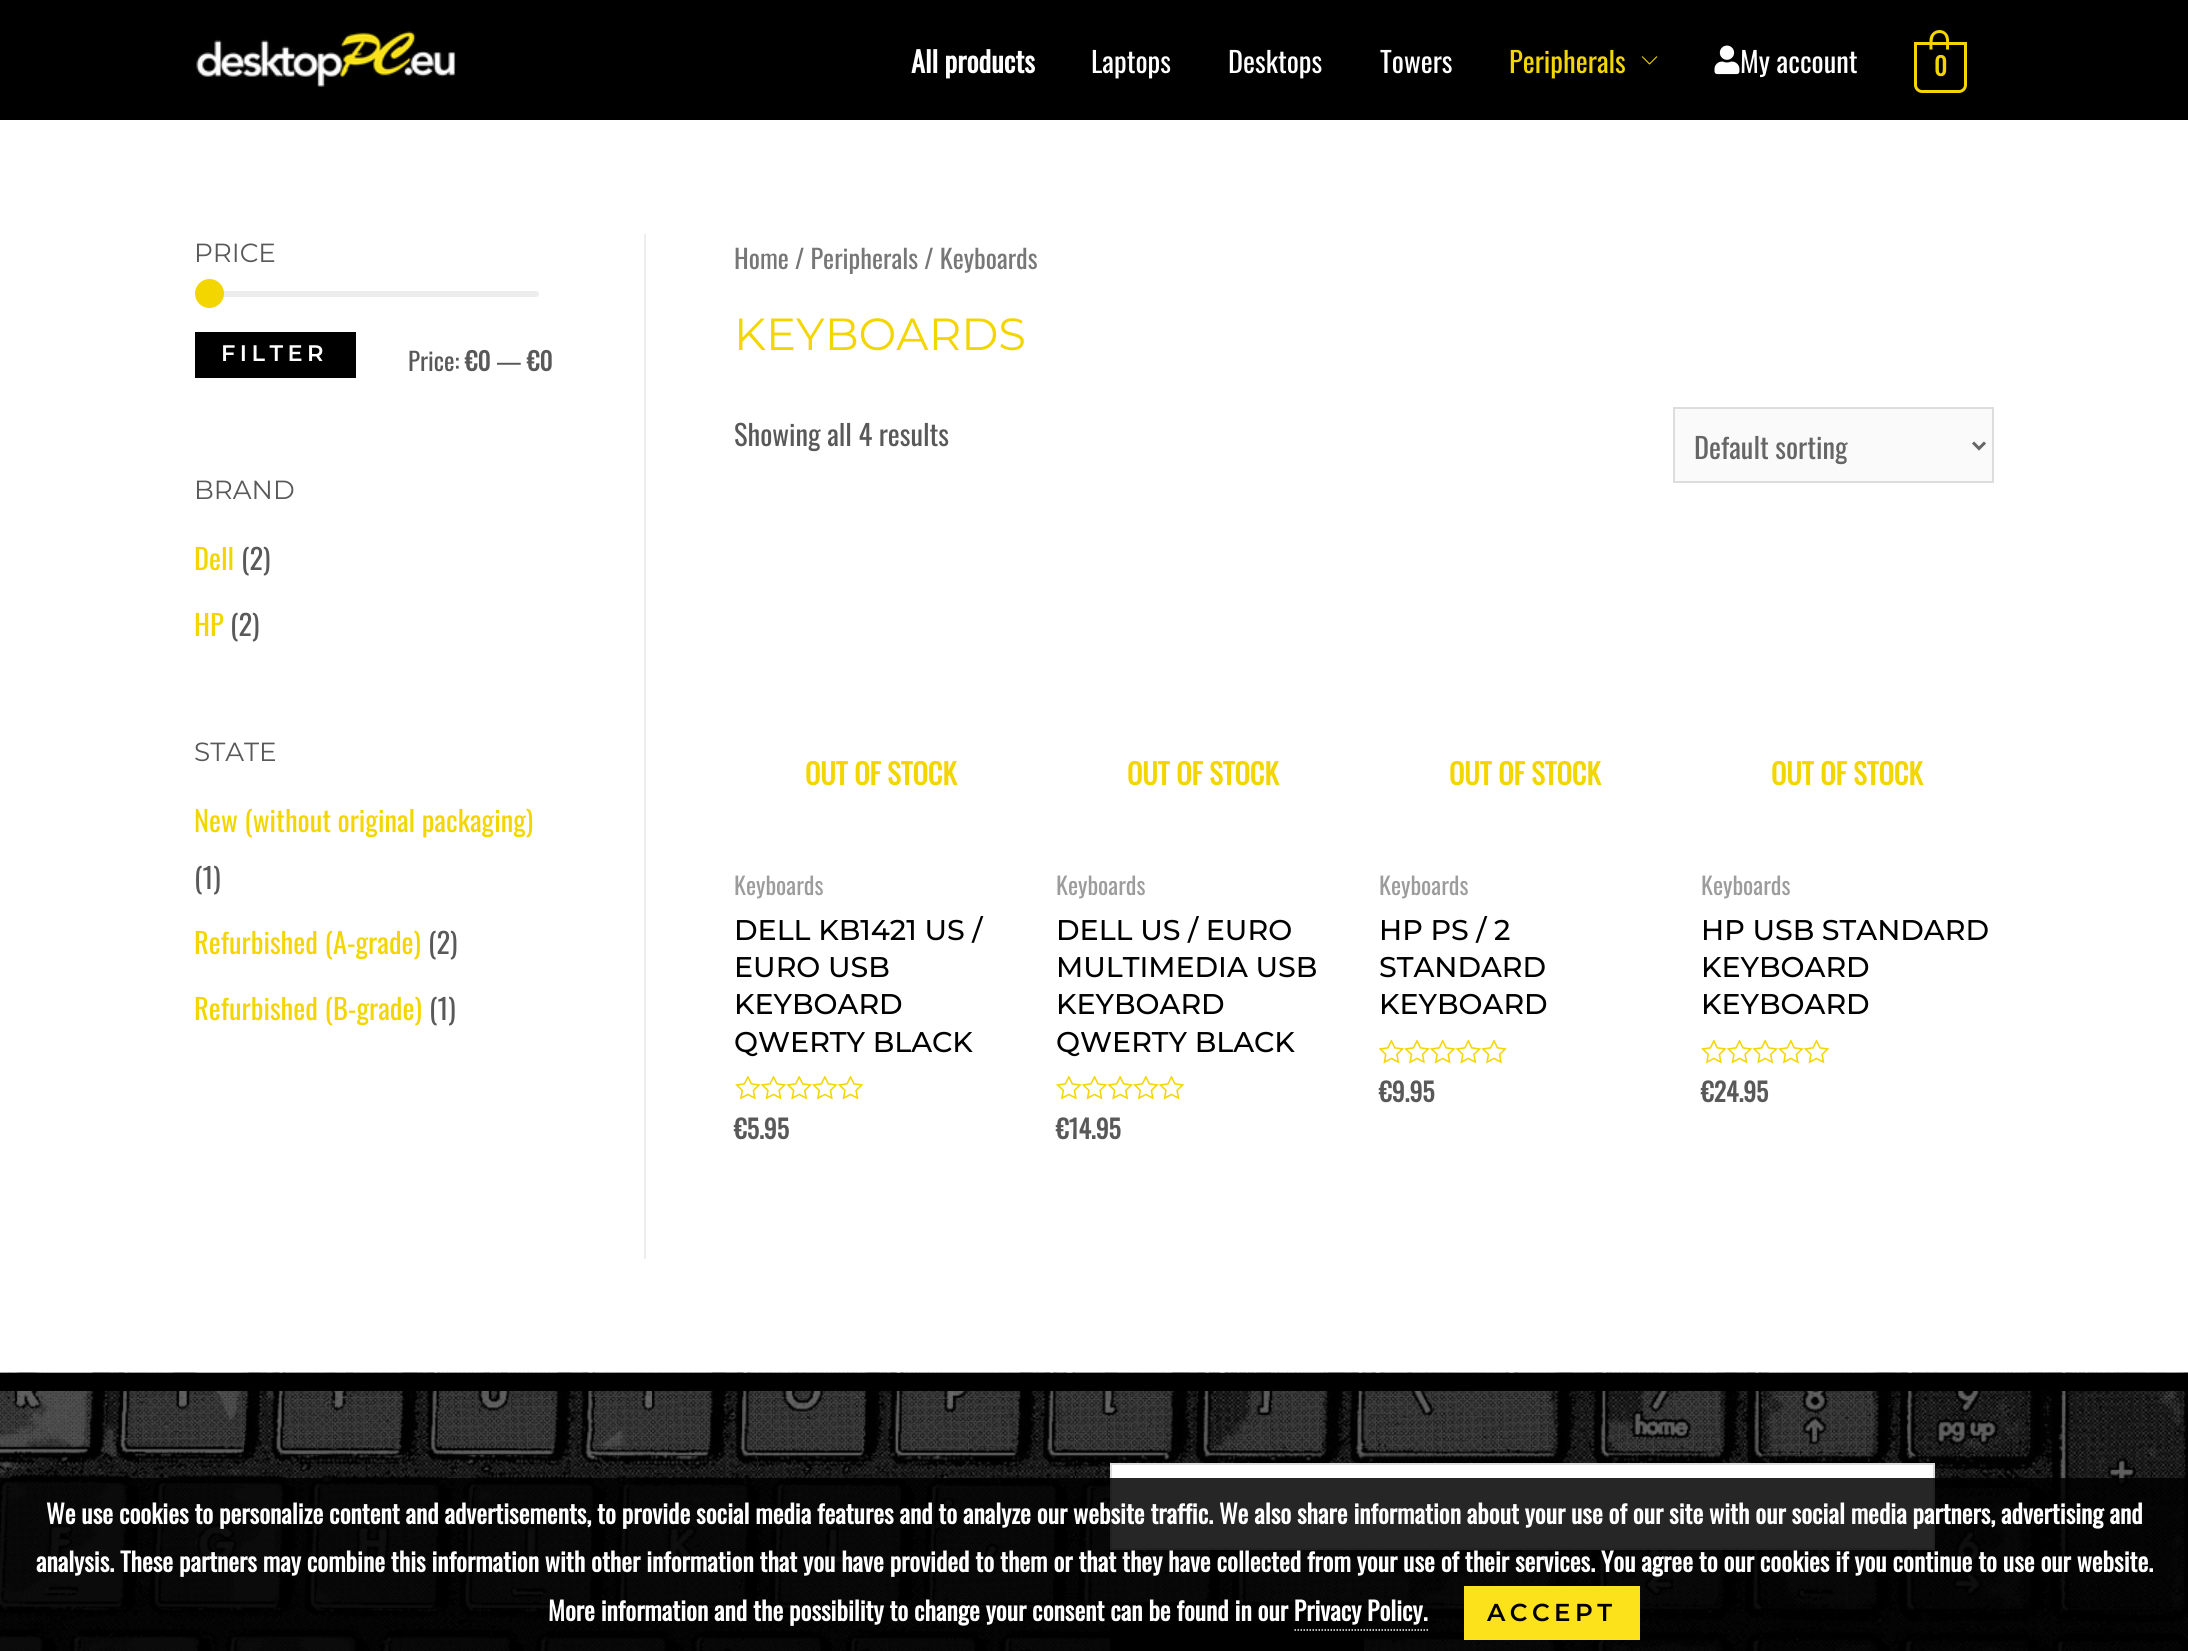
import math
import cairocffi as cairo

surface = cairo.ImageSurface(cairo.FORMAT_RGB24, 2188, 1651)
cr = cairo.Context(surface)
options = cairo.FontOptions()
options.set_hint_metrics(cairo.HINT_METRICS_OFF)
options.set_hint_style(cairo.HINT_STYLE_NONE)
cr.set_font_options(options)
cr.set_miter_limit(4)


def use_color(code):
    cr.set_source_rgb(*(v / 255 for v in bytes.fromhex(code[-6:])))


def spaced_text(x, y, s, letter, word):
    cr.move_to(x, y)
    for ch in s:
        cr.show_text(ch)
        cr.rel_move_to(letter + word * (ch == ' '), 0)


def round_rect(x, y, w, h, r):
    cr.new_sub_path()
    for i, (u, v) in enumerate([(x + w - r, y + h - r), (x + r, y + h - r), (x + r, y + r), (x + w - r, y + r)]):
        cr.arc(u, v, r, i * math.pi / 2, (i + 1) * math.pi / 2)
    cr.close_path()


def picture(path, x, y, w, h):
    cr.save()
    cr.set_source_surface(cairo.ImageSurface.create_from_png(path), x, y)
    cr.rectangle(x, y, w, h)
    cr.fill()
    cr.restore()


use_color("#ffffff")
cr.paint()
use_color("#000000")
cr.rectangle(0, 0, 2188, 120)
cr.fill()
picture("img1.png", 196, 31, 260, 56)
cr.select_font_face("Oswald", cairo.FONT_SLANT_NORMAL, cairo.FONT_WEIGHT_BOLD)
cr.set_font_size(28.5)
use_color("#ffffff")
cr.move_to(911, 73)
cr.show_text("All products")
cr.select_font_face("Oswald")
cr.move_to(1091, 73)
cr.show_text("Laptops")
cr.move_to(1228, 73)
cr.show_text("Desktops")
cr.move_to(1380, 73)
cr.show_text("Towers")
use_color("#f3d600")
cr.move_to(1509, 73)
cr.show_text("Peripherals")
picture("img2.png", 1641, 56, 17, 9)
picture("img3.png", 1714, 45, 26, 30)
use_color("#ffffff")
cr.move_to(1740, 73)
cr.show_text("My account")
cr.new_path()
cr.move_to(1915.5, 43.5)
cr.line_to(1965.5, 43.5)
cr.line_to(1965.5, 85)
cr.curve_to(1965.5, 88.5, 1962.5, 91.5, 1959, 91.5)
cr.line_to(1922, 91.5)
cr.curve_to(1918.5, 91.5, 1915.5, 88.5, 1915.5, 85)
cr.close_path()
use_color("#f3d600")
cr.set_line_width(3)
cr.stroke()
cr.set_fill_rule(cairo.FILL_RULE_EVEN_ODD)
cr.new_path()
cr.move_to(1939.5, 30)
cr.curve_to(1945, 30, 1949, 34.5, 1949, 40)
cr.line_to(1949, 49.5)
cr.line_to(1929.5, 49.5)
cr.line_to(1929.5, 40)
cr.curve_to(1929.5, 34.5, 1934, 30, 1939.5, 30)
cr.close_path()
cr.move_to(1939.5, 33)
cr.curve_to(1948, 33, 1946, 44, 1946, 49.5)
cr.line_to(1932.5, 49.5)
cr.curve_to(1932.5, 44, 1931, 33, 1939.5, 33)
cr.close_path()
cr.fill()
cr.select_font_face("Oswald", cairo.FONT_SLANT_NORMAL, cairo.FONT_WEIGHT_BOLD)
cr.set_font_size(25)
cr.move_to(1934, 76)
cr.show_text("0")
cr.select_font_face("Montserrat")
cr.set_font_size(26.25)
use_color("#595959")
cr.move_to(194, 262)
cr.show_text("PRICE")
use_color("#ededed")
round_rect(209, 291, 330, 6, 3)
cr.fill()
use_color("#f3d600")
cr.arc(209.5, 293.5, 14.5, 0, 2 * math.pi)
cr.fill()
use_color("#000000")
cr.rectangle(195, 332, 161, 46)
cr.fill()
cr.select_font_face("Montserrat SemiBold")
cr.set_font_size(22.5)
use_color("#ffffff")
spaced_text(221, 361, "FILTER", 4.5, 0)
cr.select_font_face("Oswald")
cr.set_font_size(25)
use_color("#595959")
cr.move_to(408, 371)
cr.show_text("Price:")
cr.select_font_face("Oswald", cairo.FONT_SLANT_NORMAL, cairo.FONT_WEIGHT_BOLD)
cr.move_to(465, 371)
cr.show_text("€0")
cr.select_font_face("Oswald")
cr.move_to(496, 371)
cr.show_text("—")
cr.select_font_face("Oswald", cairo.FONT_SLANT_NORMAL, cairo.FONT_WEIGHT_BOLD)
cr.move_to(527, 371)
cr.show_text("€0")
cr.select_font_face("Montserrat")
cr.set_font_size(26.25)
cr.move_to(194, 499)
cr.show_text("BRAND")
cr.select_font_face("Oswald")
cr.set_font_size(28.5)
use_color("#f3d600")
cr.move_to(194, 570)
cr.show_text("Dell")
use_color("#595959")
cr.move_to(241, 570)
cr.show_text("(2)")
use_color("#f3d600")
cr.move_to(194, 636)
cr.show_text("HP")
use_color("#595959")
cr.move_to(230, 636)
cr.show_text("(2)")
cr.select_font_face("Montserrat")
cr.set_font_size(26.25)
cr.move_to(194, 761)
cr.show_text("STATE")
cr.select_font_face("Oswald")
cr.set_font_size(28.5)
use_color("#f3d600")
cr.move_to(194, 832)
cr.show_text("New (without original packaging)")
use_color("#595959")
cr.move_to(194, 889)
cr.show_text("(1)")
use_color("#f3d600")
cr.move_to(194, 954)
cr.show_text("Refurbished (A-grade)")
use_color("#595959")
cr.move_to(428, 954)
cr.show_text("(2)")
use_color("#f3d600")
cr.move_to(194, 1020)
cr.show_text("Refurbished (B-grade)")
use_color("#595959")
cr.move_to(429, 1020)
cr.show_text("(1)")
use_color("#eeeeee")
cr.rectangle(644, 234, 2, 1025)
cr.fill()
cr.set_font_size(26.25)
use_color("#777777")
cr.move_to(734, 269)
cr.show_text("Home / Peripherals / Keyboards")
cr.select_font_face("Montserrat")
cr.set_font_size(45)
use_color("#f3d600")
cr.move_to(734, 350)
cr.show_text("KEYBOARDS")
cr.select_font_face("Oswald")
cr.set_font_size(28.5)
use_color("#595959")
cr.move_to(734, 446)
cr.show_text("Showing all 4 results")
use_color("#fafafa")
cr.rectangle(1674, 408, 319, 74)
cr.fill_preserve()
use_color("#dddddd")
cr.set_line_width(2)
cr.stroke()
cr.new_path()
cr.move_to(1973, 442.5)
cr.line_to(1979, 448.5)
cr.line_to(1985, 442.5)
use_color("#666666")
cr.set_line_width(3)
cr.stroke()
cr.move_to(1694, 459)
cr.show_text("Default sorting")
cr.select_font_face("Oswald", cairo.FONT_SLANT_NORMAL, cairo.FONT_WEIGHT_BOLD)
use_color("#f3d600")
cr.move_to(805, 785)
cr.show_text("OUT OF STOCK")
cr.select_font_face("Oswald")
cr.set_font_size(24)
use_color("#9c9c9c")
cr.move_to(734, 895)
cr.show_text("Keyboards")
cr.select_font_face("Montserrat Medium")
cr.set_font_size(28.5)
use_color("#000000")
cr.move_to(734, 940)
cr.show_text("DELL KB1421 US /")
cr.move_to(734, 977)
cr.show_text("EURO USB")
cr.move_to(734, 1014)
cr.show_text("KEYBOARD")
cr.move_to(734, 1052)
cr.show_text("QWERTY BLACK")
picture("img4.png", 735, 1076, 129, 24)
cr.select_font_face("Oswald", cairo.FONT_SLANT_NORMAL, cairo.FONT_WEIGHT_BOLD)
cr.set_font_size(25.65)
use_color("#595959")
cr.move_to(734, 1139)
cr.show_text("€5.95")
cr.set_font_size(28.5)
use_color("#f3d600")
cr.move_to(1127, 785)
cr.show_text("OUT OF STOCK")
cr.select_font_face("Oswald")
cr.set_font_size(24)
use_color("#9c9c9c")
cr.move_to(1056, 895)
cr.show_text("Keyboards")
cr.select_font_face("Montserrat Medium")
cr.set_font_size(28.5)
use_color("#000000")
cr.move_to(1056, 940)
cr.show_text("DELL US / EURO")
cr.move_to(1056, 977)
cr.show_text("MULTIMEDIA USB")
cr.move_to(1056, 1014)
cr.show_text("KEYBOARD")
cr.move_to(1056, 1052)
cr.show_text("QWERTY BLACK")
picture("img4.png", 1056, 1076, 129, 24)
cr.select_font_face("Oswald", cairo.FONT_SLANT_NORMAL, cairo.FONT_WEIGHT_BOLD)
cr.set_font_size(25.65)
use_color("#595959")
cr.move_to(1056, 1139)
cr.show_text("€14.95")
cr.set_font_size(28.5)
use_color("#f3d600")
cr.move_to(1449, 785)
cr.show_text("OUT OF STOCK")
cr.select_font_face("Oswald")
cr.set_font_size(24)
use_color("#9c9c9c")
cr.move_to(1379, 895)
cr.show_text("Keyboards")
cr.select_font_face("Montserrat Medium")
cr.set_font_size(28.5)
use_color("#000000")
cr.move_to(1379, 940)
cr.show_text("HP PS / 2")
cr.move_to(1379, 977)
cr.show_text("STANDARD")
cr.move_to(1379, 1014)
cr.show_text("KEYBOARD")
picture("img5.png", 1379, 1040, 128, 24)
cr.select_font_face("Oswald", cairo.FONT_SLANT_NORMAL, cairo.FONT_WEIGHT_BOLD)
cr.set_font_size(25.65)
use_color("#595959")
cr.move_to(1379, 1102)
cr.show_text("€9.95")
cr.set_font_size(28.5)
use_color("#f3d600")
cr.move_to(1771, 785)
cr.show_text("OUT OF STOCK")
cr.select_font_face("Oswald")
cr.set_font_size(24)
use_color("#9c9c9c")
cr.move_to(1701, 895)
cr.show_text("Keyboards")
cr.select_font_face("Montserrat Medium")
cr.set_font_size(28.5)
use_color("#000000")
cr.move_to(1701, 940)
cr.show_text("HP USB STANDARD")
cr.move_to(1701, 977)
cr.show_text("KEYBOARD")
cr.move_to(1701, 1014)
cr.show_text("KEYBOARD")
picture("img4.png", 1701, 1040, 129, 24)
cr.select_font_face("Oswald", cairo.FONT_SLANT_NORMAL, cairo.FONT_WEIGHT_BOLD)
cr.set_font_size(25.65)
use_color("#595959")
cr.move_to(1701, 1102)
cr.show_text("€24.95")
picture("img6.png", 0, 1372, 2188, 279)
use_color("#000000")
cr.rectangle(0, 1373, 2188, 18)
cr.fill()
use_color("#ffffff")
cr.rectangle(1111, 1464, 823, 85)
cr.fill_preserve()
use_color("#dddddd")
cr.set_line_width(2)
cr.stroke()
use_color("#000000")
cr.rectangle(1110, 1602, 254, 49)
cr.fill()
cr.set_source_rgba(0, 0, 0, 0.85)
cr.rectangle(0, 1478, 2188, 173)
cr.fill()
use_color("#ffffff")
cr.move_to(46, 1524)
cr.show_text("We use cookies to personalize content and advertisements, to provide social media features and to analyze our website traffic. We also share information about your use of our site with our social media partners, advertising and")
cr.move_to(36, 1572)
cr.show_text("analysis. These partners may combine this information with other information that you have provided to them or that they have collected from your use of their services. You agree to our cookies if you continue to use our website.")
cr.move_to(548, 1621)
cr.show_text("More information and the possibility to change your consent can be found in our Privacy Policy.")
use_color("#fce21b")
cr.rectangle(1464, 1586, 176, 54)
cr.fill()
cr.select_font_face("Montserrat SemiBold")
cr.set_font_size(24.5)
use_color("#000000")
spaced_text(1487, 1621, "ACCEPT", 4.5, 0)
cr.new_path()
cr.move_to(1294.5, 1630)
cr.line_to(1428, 1630)
use_color("#ffffff")
cr.set_line_width(1.5)
cr.set_dash([1.5, 1.5])
cr.stroke()
surface.write_to_png("result.png")
